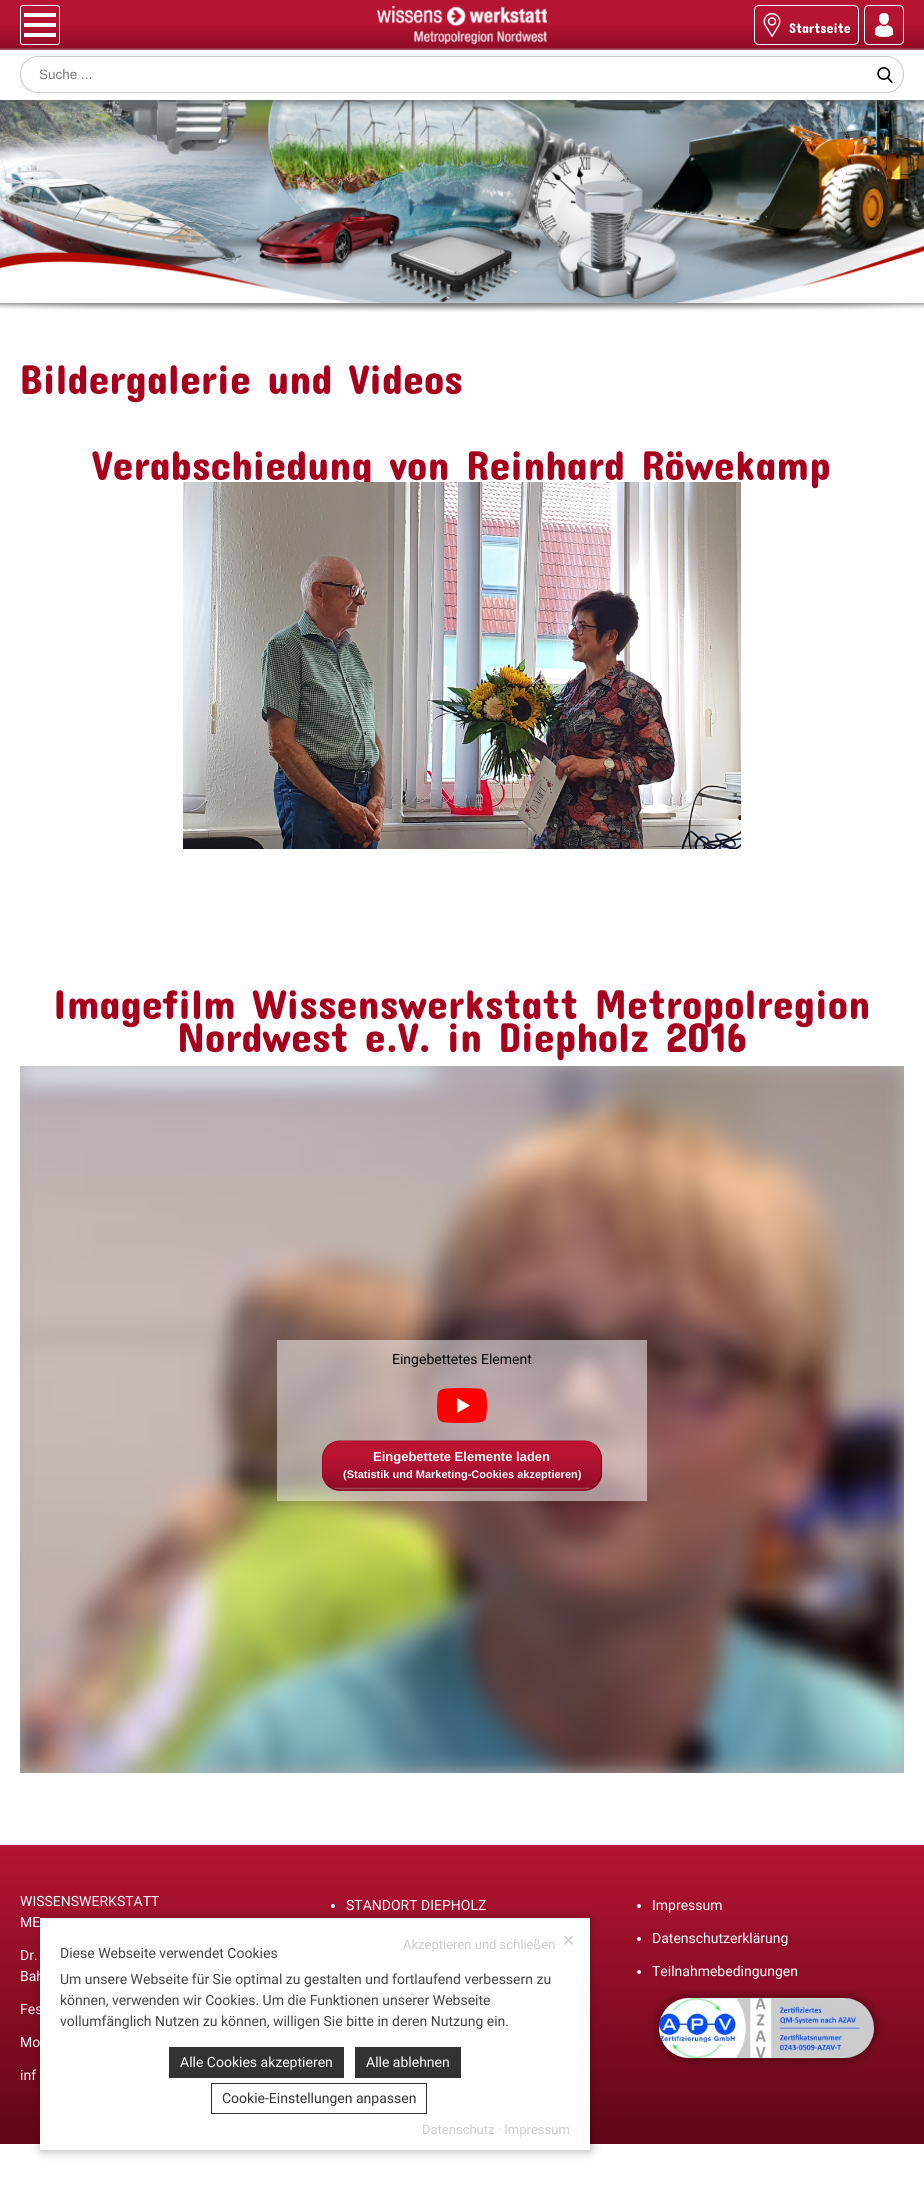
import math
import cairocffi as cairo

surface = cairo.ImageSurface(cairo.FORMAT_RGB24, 924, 2190)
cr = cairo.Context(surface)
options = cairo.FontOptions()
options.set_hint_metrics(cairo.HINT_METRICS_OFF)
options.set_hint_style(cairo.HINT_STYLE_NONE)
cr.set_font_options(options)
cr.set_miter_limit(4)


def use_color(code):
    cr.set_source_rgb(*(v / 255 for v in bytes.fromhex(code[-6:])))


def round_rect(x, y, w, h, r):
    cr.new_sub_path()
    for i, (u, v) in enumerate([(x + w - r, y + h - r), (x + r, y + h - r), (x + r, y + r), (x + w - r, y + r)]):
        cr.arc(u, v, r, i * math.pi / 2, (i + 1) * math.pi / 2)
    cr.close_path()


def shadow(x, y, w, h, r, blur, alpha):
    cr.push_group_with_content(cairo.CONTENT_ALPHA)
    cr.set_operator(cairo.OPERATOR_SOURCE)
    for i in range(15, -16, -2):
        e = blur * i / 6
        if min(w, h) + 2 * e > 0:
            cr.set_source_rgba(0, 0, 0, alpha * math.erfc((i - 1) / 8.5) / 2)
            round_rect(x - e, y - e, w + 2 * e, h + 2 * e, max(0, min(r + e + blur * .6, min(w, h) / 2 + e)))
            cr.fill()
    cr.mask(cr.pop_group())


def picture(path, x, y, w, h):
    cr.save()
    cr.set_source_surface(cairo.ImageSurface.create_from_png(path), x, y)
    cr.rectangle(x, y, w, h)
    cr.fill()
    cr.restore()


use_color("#ffffff")
cr.paint()
picture("img6.png", 0, 100, 924, 203)
cr.save()
cr.rectangle(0, 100, 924, 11)
cr.clip()
use_color("#555555")
shadow(0, 1, 924, 100, 0, 5, 1)
cr.restore()
use_color("#b51433")
cr.rectangle(0, 0, 924, 25)
cr.fill()
picture("img1.png", 0, 25, 924, 25)
round_rect(20.5, 5.5, 39, 39, 2.5)
use_color("#ffffff")
cr.set_line_width(1)
cr.stroke()
cr.rectangle(24, 13, 32, 4)
cr.fill()
cr.rectangle(24, 23, 32, 4)
cr.fill()
cr.rectangle(24, 33, 32, 4)
cr.fill()
picture("img2.png", 377, 5, 170, 40)
round_rect(754.5, 5.5, 104, 39, 4.5)
cr.stroke()
picture("img3.png", 763, 13, 18, 24)
cr.select_font_face("Concert One")
cr.set_font_size(14)
cr.move_to(789, 33)
cr.show_text("Startseite")
round_rect(864.5, 5.5, 39, 39, 4.5)
cr.stroke()
picture("img4.png", 874, 13, 20, 24)
round_rect(20.5, 56.5, 883, 36, 17.5)
use_color("#cccccc")
cr.stroke()
cr.select_font_face("Liberation Sans")
cr.set_font_size(13.5)
use_color("#757575")
cr.move_to(39, 79)
cr.show_text("Suche ...")
picture("img5.png", 877, 67, 16, 16)
picture("img7.png", 0, 303, 924, 9)
cr.select_font_face("Concert One")
cr.set_font_size(42)
use_color("#a7001e")
cr.move_to(20, 394)
cr.show_text("Bildergalerie und Videos")
cr.move_to(92, 480)
cr.show_text("Verabschiedung von Reinhard Röwekamp")
picture("img8.png", 183, 482, 558, 367)
cr.move_to(53, 1019)
cr.show_text("Imagefilm Wissenswerkstatt Metropolregion")
cr.move_to(177, 1052)
cr.show_text("Nordwest e.V. in Diepholz 2016")
use_color("#b2b2b2")
cr.rectangle(20, 1066, 884, 707)
cr.fill()
picture("img9.png", 20, 1066, 884, 707)
cr.set_source_rgba(1, 1, 1, 0.5)
cr.rectangle(277, 1340, 370, 161)
cr.fill()
cr.select_font_face("Roboto")
cr.set_font_size(14)
use_color("#000000")
cr.move_to(392, 1364)
cr.show_text("Eingebettetes Element")
picture("img10.png", 437, 1388, 50, 35)
use_color("#bb1433")
round_rect(322, 1441, 280, 50, 18)
cr.fill()
picture("img11.png", 322, 1459, 280, 31)
cr.new_path()
cr.move_to(596.5, 1446)
cr.curve_to(599.5, 1449.5, 601.5, 1454, 601.5, 1458.5)
cr.line_to(601.5, 1472.5)
cr.curve_to(601.5, 1477, 599.5, 1481.5, 596.5, 1485)
cr.curve_to(593, 1488, 588.5, 1490, 584, 1490)
cr.line_to(340, 1490)
cr.curve_to(335.5, 1490, 331, 1488, 327.5, 1485)
use_color("#6f0014")
cr.stroke()
cr.new_path()
cr.move_to(327.5, 1485)
cr.curve_to(324.5, 1481.5, 322.5, 1477, 322.5, 1472.5)
cr.line_to(322.5, 1458.5)
cr.curve_to(322.5, 1454, 324.5, 1449.5, 327.5, 1446)
cr.curve_to(331, 1443, 335.5, 1441, 340, 1441)
cr.line_to(584, 1441)
cr.curve_to(588.5, 1441, 593, 1443, 596.5, 1446)
use_color("#a7001e")
cr.stroke()
cr.select_font_face("Liberation Sans", cairo.FONT_SLANT_NORMAL, cairo.FONT_WEIGHT_BOLD)
cr.set_font_size(13)
use_color("#ffffff")
cr.move_to(373, 1461)
cr.show_text("Eingebettete Elemente laden")
cr.set_font_size(11)
cr.move_to(343, 1478)
cr.show_text("(Statistik und Marketing-Cookies akzeptieren)")
gradient = cairo.LinearGradient(462, 1845, 462, 2144)
gradient.add_color_stop_rgba(0, 0.71, 0.078, 0.2, 1)
gradient.add_color_stop_rgba(1, 0.373, 0.024, 0.09, 1)
cr.set_source(gradient)
cr.rectangle(0, 1845, 924, 299)
cr.fill()
cr.select_font_face("Roboto")
cr.set_font_size(14)
use_color("#ffffff")
cr.move_to(20, 1906)
cr.show_text("WISSENSWERKSTATT")
cr.move_to(20, 1927)
cr.show_text("ME")
cr.move_to(20, 1960)
cr.show_text("Dr.")
cr.move_to(20, 1981)
cr.show_text("Bah")
cr.move_to(20, 2014)
cr.show_text("Fes")
cr.move_to(20, 2047)
cr.show_text("Mo")
cr.move_to(20, 2080)
cr.show_text("inf")
cr.new_path()
cr.arc(333, 1906, 2, 0, 2 * math.pi)
cr.fill()
cr.move_to(346, 1910)
cr.show_text("STANDORT DIEPHOLZ")
cr.new_path()
cr.arc(639, 1906, 2, 0, 2 * math.pi)
cr.fill()
cr.move_to(652, 1910)
cr.show_text("Impressum")
cr.new_path()
cr.arc(639, 1939, 2, 0, 2 * math.pi)
cr.fill()
cr.move_to(652, 1943)
cr.show_text("Datenschutzerklärung")
cr.new_path()
cr.arc(639, 1972, 2, 0, 2 * math.pi)
cr.fill()
cr.move_to(652, 1976)
cr.show_text("Teilnahmebedingungen")
use_color("#000000")
shadow(659, 1998, 215, 60, 30, 5, 0.5)
picture("img12.png", 659, 1998, 215, 60)
shadow(41, 1919, 550, 232, 0, 5, 0.3)
use_color("#ffffff")
cr.rectangle(40, 1918, 550, 232)
cr.fill()
use_color("#444444")
cr.move_to(60, 1958)
cr.show_text("Diese Webseite verwendet Cookies")
cr.set_font_size(13)
use_color("#cccccc")
cr.move_to(403, 1949)
cr.show_text("Akzeptieren und schließen")
cr.select_font_face("DejaVu Sans")
cr.set_font_size(16)
cr.move_to(562, 1946)
cr.show_text("✕")
cr.select_font_face("Roboto")
cr.set_font_size(14)
use_color("#444444")
cr.move_to(60, 1984)
cr.show_text("Um unsere Webseite für Sie optimal zu gestalten und fortlaufend verbessern zu")
cr.move_to(60, 2005)
cr.show_text("können, verwenden wir Cookies. Um die Funktionen unserer Webseite")
cr.move_to(60, 2026)
cr.show_text("vollumfänglich Nutzen zu können, willigen Sie bitte in deren Nutzung ein.")
use_color("#333333")
cr.rectangle(169, 2047, 175, 31)
cr.fill()
use_color("#ffffff")
cr.move_to(180, 2067)
cr.show_text("Alle Cookies akzeptieren")
use_color("#333333")
cr.rectangle(355, 2047, 106, 31)
cr.fill()
use_color("#ffffff")
cr.move_to(366, 2067)
cr.show_text("Alle ablehnen")
cr.rectangle(211.5, 2083.5, 215, 30)
use_color("#333333")
cr.stroke()
cr.move_to(222, 2103)
cr.show_text("Cookie-Einstellungen anpassen")
cr.set_font_size(13)
use_color("#cccccc")
cr.move_to(422, 2134)
cr.show_text("Datenschutz · Impressum")
surface.write_to_png("result.png")
